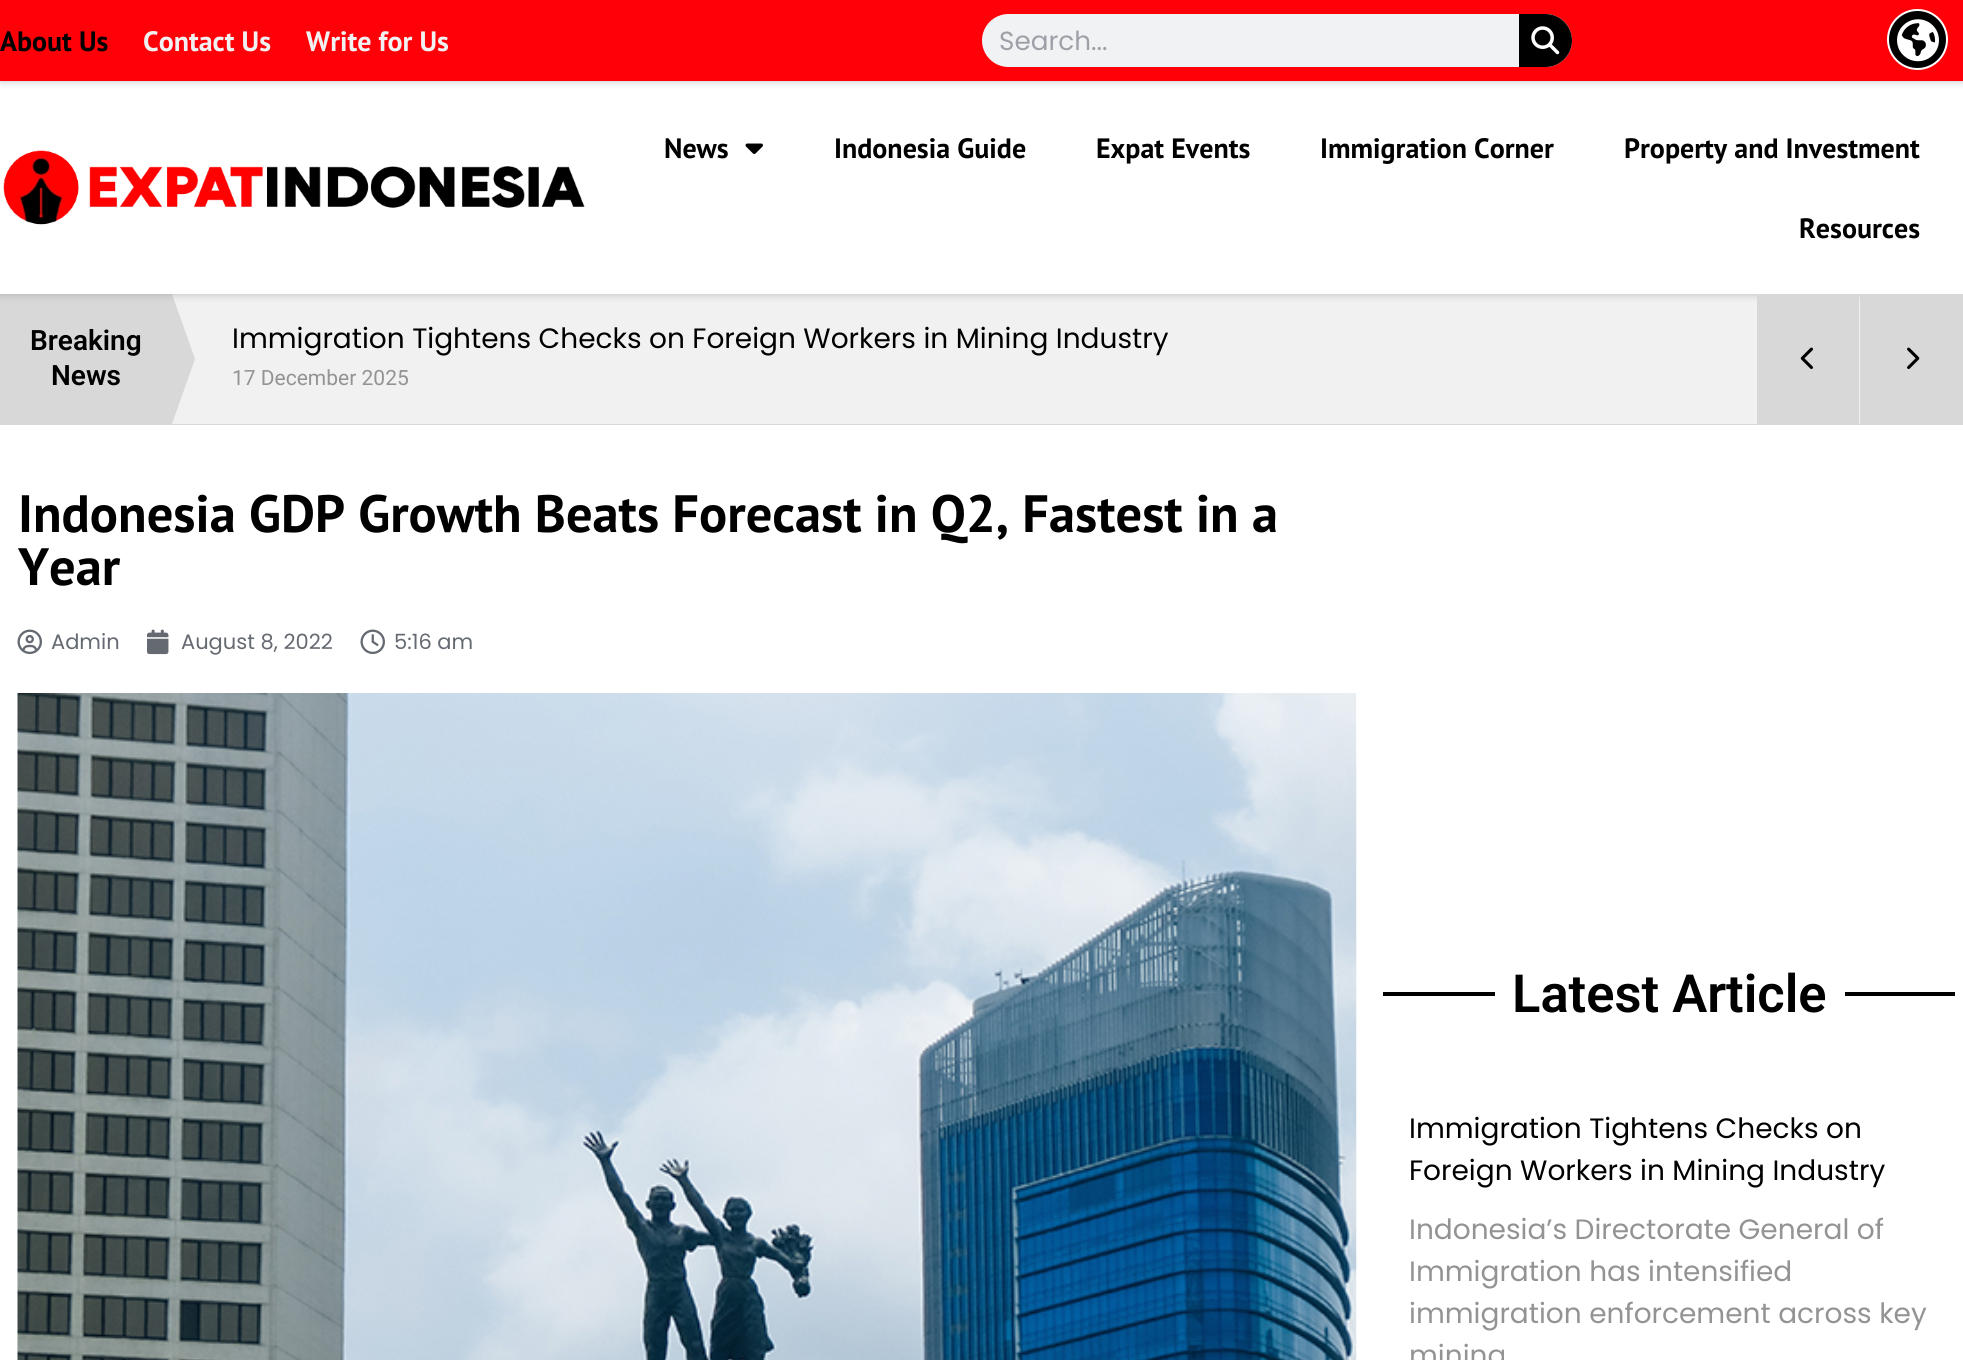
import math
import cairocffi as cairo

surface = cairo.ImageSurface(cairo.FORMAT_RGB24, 1963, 1360)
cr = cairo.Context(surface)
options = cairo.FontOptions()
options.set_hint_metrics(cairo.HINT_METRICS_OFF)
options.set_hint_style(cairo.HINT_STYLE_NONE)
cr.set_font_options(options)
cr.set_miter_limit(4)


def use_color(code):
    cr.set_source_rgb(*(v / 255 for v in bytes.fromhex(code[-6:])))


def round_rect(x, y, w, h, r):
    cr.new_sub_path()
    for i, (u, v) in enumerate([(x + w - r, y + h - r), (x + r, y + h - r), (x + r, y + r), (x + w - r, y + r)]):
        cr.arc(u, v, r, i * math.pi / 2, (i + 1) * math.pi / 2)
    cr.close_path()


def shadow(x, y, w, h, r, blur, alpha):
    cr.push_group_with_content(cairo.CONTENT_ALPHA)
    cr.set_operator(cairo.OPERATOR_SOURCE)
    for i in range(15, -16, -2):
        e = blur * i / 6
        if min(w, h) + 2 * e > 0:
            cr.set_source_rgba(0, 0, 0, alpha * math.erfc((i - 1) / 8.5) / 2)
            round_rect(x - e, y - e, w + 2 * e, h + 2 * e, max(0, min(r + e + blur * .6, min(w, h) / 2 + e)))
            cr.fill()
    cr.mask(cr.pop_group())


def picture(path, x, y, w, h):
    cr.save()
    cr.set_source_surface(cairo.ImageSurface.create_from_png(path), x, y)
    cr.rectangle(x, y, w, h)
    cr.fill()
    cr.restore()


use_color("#ffffff")
cr.paint()
use_color("#848484")
shadow(0, 0, 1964, 81, 0, 4.5, 0.5)
use_color("#d8d8d8")
cr.rectangle(0, 294, 1963, 131)
cr.fill()
use_color("#f1f1f1")
cr.rectangle(172, 294, 1688, 130)
cr.fill()
cr.save()
cr.rectangle(172, 294, 87, 130)
cr.clip()
use_color("#d8d8d8")
cr.new_path()
cr.move_to(172, 294)
cr.line_to(195, 359)
cr.line_to(172, 424)
cr.line_to(113, 424)
cr.close_path()
cr.fill()
cr.restore()
cr.save()
cr.rectangle(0, 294, 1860, 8)
cr.clip()
use_color("#848484")
shadow(0, 81, 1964, 213, 0, 4.5, 0.5)
cr.restore()
use_color("#ff0008")
cr.rectangle(0, 0, 1963, 81)
cr.fill()
cr.select_font_face("PT Sans", cairo.FONT_SLANT_NORMAL, cairo.FONT_WEIGHT_BOLD)
cr.set_font_size(28)
use_color("#000000")
cr.move_to(0, 51)
cr.show_text("About Us")
use_color("#f1f1f1")
cr.move_to(143, 51)
cr.show_text("Contact Us")
cr.move_to(306, 51)
cr.show_text("Write for Us")
use_color("#f1f2f3")
round_rect(982, 14, 590, 53, 26.5)
cr.fill()
cr.select_font_face("Poppins")
cr.set_font_size(26.25)
use_color("#9da0a6")
cr.move_to(999, 50)
cr.show_text("Search...")
use_color("#000000")
cr.new_path()
cr.move_to(1519, 14)
cr.line_to(1545.5, 14)
cr.curve_to(1560, 14, 1572, 26, 1572, 40.5)
cr.curve_to(1572, 55, 1560, 67, 1545.5, 67)
cr.line_to(1519, 67)
cr.close_path()
cr.fill()
picture("img1.png", 1531, 26, 29, 29)
cr.arc(1917.5, 39.5, 29.5, 0, 2 * math.pi)
cr.fill_preserve()
use_color("#ffffff")
cr.stroke()
picture("img2.png", 1897, 19, 42, 43)
picture("img3.png", 3, 150, 582, 75)
cr.select_font_face("PT Sans", cairo.FONT_SLANT_NORMAL, cairo.FONT_WEIGHT_BOLD)
cr.set_font_size(28)
use_color("#000000")
cr.move_to(664, 158)
cr.show_text("News")
picture("img4.png", 745, 143, 18, 11)
cr.move_to(834, 158)
cr.show_text("Indonesia Guide")
cr.move_to(1096, 158)
cr.show_text("Expat Events")
cr.move_to(1320, 158)
cr.show_text("Immigration Corner")
cr.move_to(1624, 158)
cr.show_text("Property and Investment")
cr.move_to(1799, 238)
cr.show_text("Resources")
cr.select_font_face("Roboto SemiBold")
cr.move_to(30, 350)
cr.show_text("Breaking")
cr.move_to(51, 385)
cr.show_text("News")
cr.select_font_face("Poppins")
cr.move_to(232, 348)
cr.show_text("Immigration Tightens Checks on Foreign Workers in Mining Industry")
cr.select_font_face("Roboto")
cr.set_font_size(21)
use_color("#939393")
cr.move_to(232, 385)
cr.show_text("17 December 2025")
use_color("#d8d8d8")
cr.rectangle(1757, 295, 102, 129)
cr.fill()
picture("img5.png", 1800, 347, 13, 22)
cr.rectangle(1860, 294, 103, 7)
cr.fill()
picture("img6.png", 1907, 347, 13, 22)
cr.select_font_face("PT Sans", cairo.FONT_SLANT_NORMAL, cairo.FONT_WEIGHT_BOLD)
cr.set_font_size(52.5)
use_color("#000000")
cr.move_to(18, 532)
cr.show_text("Indonesia GDP Growth Beats Forecast in Q2, Fastest in a")
cr.move_to(18, 585)
cr.show_text("Year")
picture("img7.png", 17, 629, 25, 26)
cr.select_font_face("Poppins")
cr.set_font_size(21)
use_color("#656a72")
cr.move_to(51, 649)
cr.show_text("Admin")
picture("img8.png", 147, 629, 22, 26)
cr.move_to(181, 649)
cr.show_text("August 8, 2022")
picture("img9.png", 360, 629, 25, 26)
cr.move_to(394, 649)
cr.show_text("5:16 am")
picture("img10.png", 17, 693, 1340, 667)
use_color("#000000")
cr.rectangle(1383, 992, 112, 4)
cr.fill()
cr.select_font_face("Roboto SemiBold")
cr.set_font_size(52.5)
cr.move_to(1512, 1012)
cr.show_text("Latest Article")
cr.rectangle(1845, 992, 110, 4)
cr.fill()
cr.select_font_face("Poppins")
cr.set_font_size(28)
cr.move_to(1409, 1138)
cr.show_text("Immigration Tightens Checks on")
cr.move_to(1409, 1180)
cr.show_text("Foreign Workers in Mining Industry")
use_color("#939393")
cr.move_to(1409, 1239)
cr.show_text("Indonesia’s Directorate General of")
cr.move_to(1409, 1281)
cr.show_text("Immigration has intensified")
cr.move_to(1409, 1323)
cr.show_text("immigration enforcement across key")
cr.move_to(1409, 1365)
cr.show_text("mining")
surface.write_to_png("result.png")
